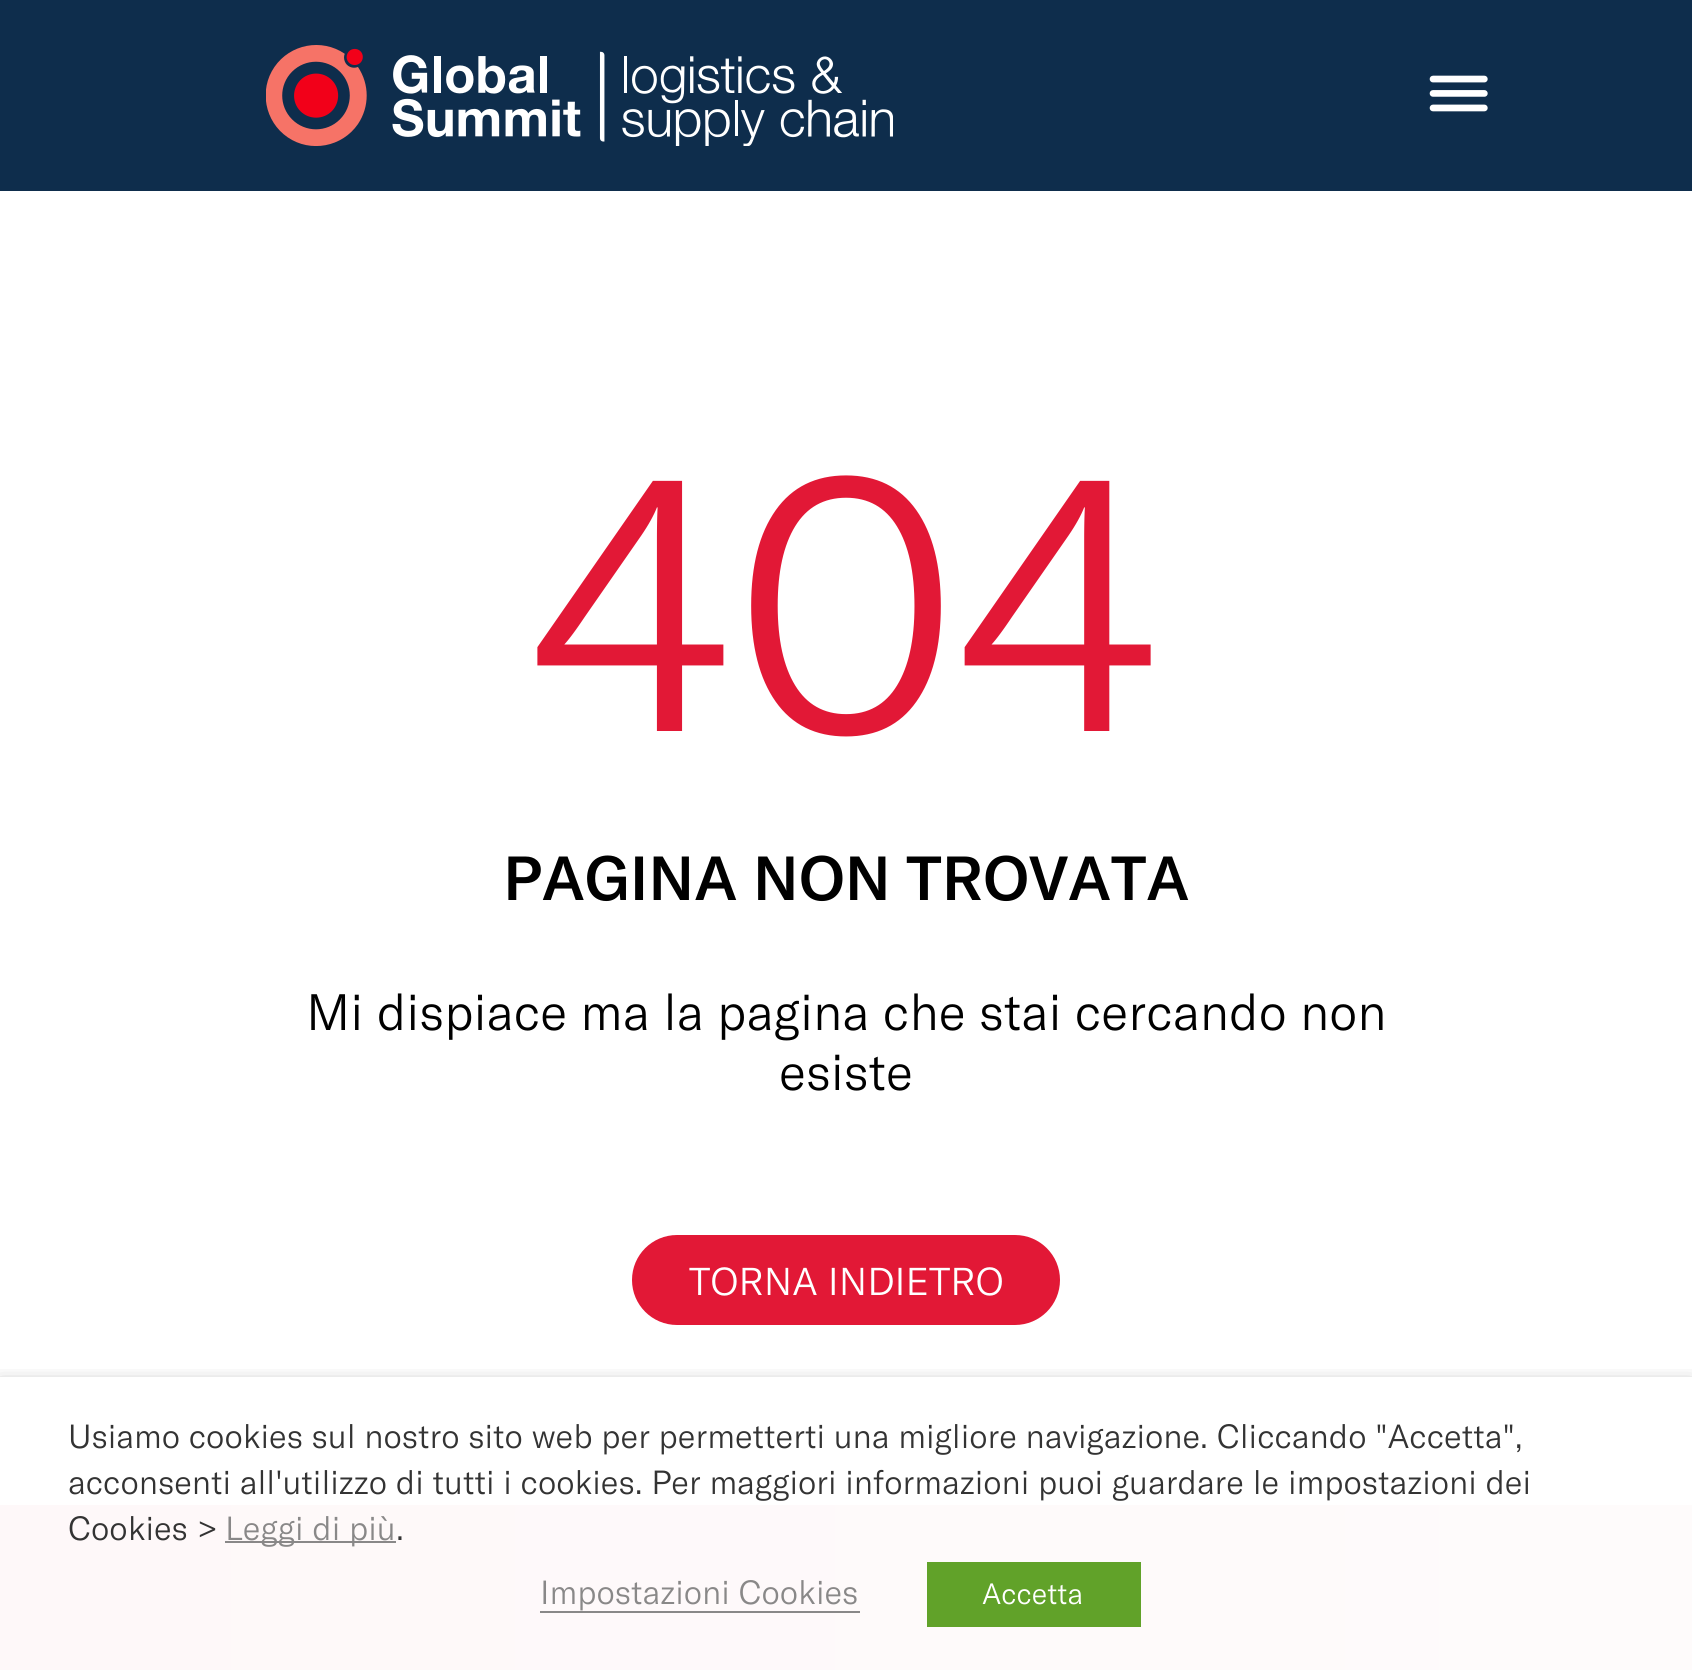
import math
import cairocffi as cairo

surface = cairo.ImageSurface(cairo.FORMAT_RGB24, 1692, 1670)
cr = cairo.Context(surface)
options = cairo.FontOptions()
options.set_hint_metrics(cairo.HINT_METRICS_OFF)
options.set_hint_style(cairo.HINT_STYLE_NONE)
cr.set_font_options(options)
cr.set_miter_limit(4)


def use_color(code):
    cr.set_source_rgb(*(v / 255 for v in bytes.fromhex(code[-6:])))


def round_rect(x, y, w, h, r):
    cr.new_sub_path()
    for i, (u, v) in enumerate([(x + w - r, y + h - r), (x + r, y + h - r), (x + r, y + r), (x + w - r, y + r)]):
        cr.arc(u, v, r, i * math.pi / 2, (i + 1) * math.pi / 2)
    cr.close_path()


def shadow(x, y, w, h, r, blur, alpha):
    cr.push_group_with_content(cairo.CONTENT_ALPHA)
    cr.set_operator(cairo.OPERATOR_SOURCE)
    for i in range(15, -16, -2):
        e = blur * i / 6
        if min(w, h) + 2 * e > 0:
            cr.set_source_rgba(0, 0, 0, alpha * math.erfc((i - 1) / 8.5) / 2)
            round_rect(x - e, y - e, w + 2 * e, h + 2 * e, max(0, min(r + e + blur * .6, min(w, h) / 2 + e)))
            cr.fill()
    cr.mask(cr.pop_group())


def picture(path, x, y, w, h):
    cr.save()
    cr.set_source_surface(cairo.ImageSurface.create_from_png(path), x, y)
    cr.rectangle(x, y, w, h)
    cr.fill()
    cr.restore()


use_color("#ffffff")
cr.paint()
use_color("#0e2d4c")
cr.rectangle(0, 0, 1692, 191)
cr.fill()
picture("img1.png", 266, 45, 627, 101)
picture("img2.png", 1429, 75, 59, 37)
cr.select_font_face("GT America Light")
cr.set_font_size(360)
use_color("#e21836")
cr.move_to(533, 731)
cr.show_text("404")
cr.select_font_face("GT America Medium")
cr.set_font_size(61.25)
use_color("#000000")
cr.move_to(503, 900)
cr.show_text("PAGINA NON TROVATA")
cr.select_font_face("GT America Light")
cr.set_font_size(50.4)
cr.move_to(306, 1030)
cr.show_text("Mi dispiace ma la pagina che stai cercando non")
cr.move_to(779, 1090)
cr.show_text("esiste")
use_color("#e21836")
round_rect(632, 1235, 428, 90, 45)
cr.fill()
cr.set_font_size(38.25)
use_color("#ffffff")
cr.move_to(689, 1295)
cr.show_text("TORNA INDIETRO")
gradient = cairo.LinearGradient(0, 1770, 1692, 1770)
gradient.add_color_stop_rgba(0, 0.996, 0.973, 0.976, 1)
gradient.add_color_stop_rgba(1, 0.996, 0.984, 0.984, 1)
cr.set_source(gradient)
cr.rectangle(0, 1505, 1692, 165)
cr.fill()
cr.save()
cr.rectangle(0, 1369, 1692, 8)
cr.clip()
use_color("#000000")
shadow(0, 1388, 1692, 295, 0, 11, 0.5)
cr.restore()
cr.set_font_size(33)
use_color("#333333")
cr.move_to(68, 1448)
cr.show_text("Usiamo cookies sul nostro sito web per permetterti una migliore navigazione. Cliccando \"Accetta\",")
cr.move_to(68, 1494)
cr.show_text("acconsenti all'utilizzo di tutti i cookies. Per maggiori informazioni puoi guardare le impostazioni dei")
cr.move_to(68, 1540)
cr.show_text("Cookies >")
use_color("#898888")
cr.rectangle(225, 1541, 171, 2)
cr.fill()
cr.move_to(225, 1540)
cr.show_text("Leggi di più")
use_color("#333333")
cr.move_to(396, 1540)
cr.show_text(".")
use_color("#898888")
cr.move_to(540, 1604)
cr.show_text("Impostazioni Cookies")
cr.rectangle(540, 1611, 320, 2)
cr.fill()
use_color("#61a229")
cr.rectangle(927, 1562, 214, 65)
cr.fill()
cr.set_font_size(29)
use_color("#ffffff")
cr.move_to(982, 1604)
cr.show_text("Accetta")
surface.write_to_png("result.png")
